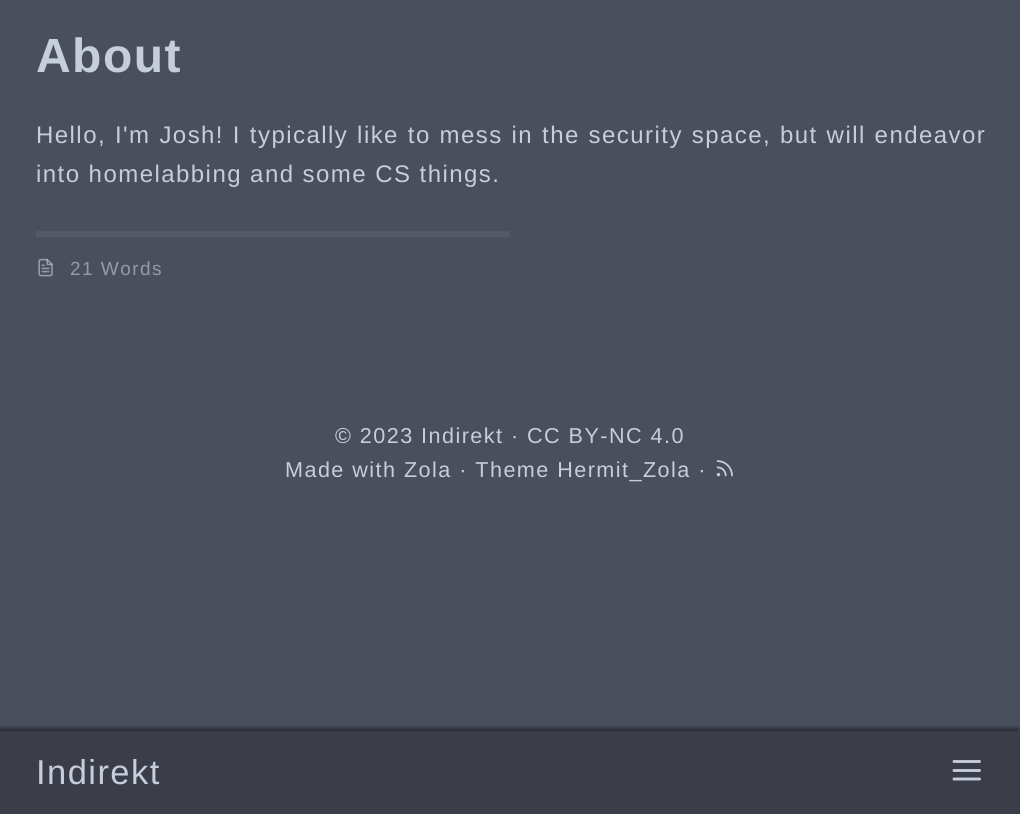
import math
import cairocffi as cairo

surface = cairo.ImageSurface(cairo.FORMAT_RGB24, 1020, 814)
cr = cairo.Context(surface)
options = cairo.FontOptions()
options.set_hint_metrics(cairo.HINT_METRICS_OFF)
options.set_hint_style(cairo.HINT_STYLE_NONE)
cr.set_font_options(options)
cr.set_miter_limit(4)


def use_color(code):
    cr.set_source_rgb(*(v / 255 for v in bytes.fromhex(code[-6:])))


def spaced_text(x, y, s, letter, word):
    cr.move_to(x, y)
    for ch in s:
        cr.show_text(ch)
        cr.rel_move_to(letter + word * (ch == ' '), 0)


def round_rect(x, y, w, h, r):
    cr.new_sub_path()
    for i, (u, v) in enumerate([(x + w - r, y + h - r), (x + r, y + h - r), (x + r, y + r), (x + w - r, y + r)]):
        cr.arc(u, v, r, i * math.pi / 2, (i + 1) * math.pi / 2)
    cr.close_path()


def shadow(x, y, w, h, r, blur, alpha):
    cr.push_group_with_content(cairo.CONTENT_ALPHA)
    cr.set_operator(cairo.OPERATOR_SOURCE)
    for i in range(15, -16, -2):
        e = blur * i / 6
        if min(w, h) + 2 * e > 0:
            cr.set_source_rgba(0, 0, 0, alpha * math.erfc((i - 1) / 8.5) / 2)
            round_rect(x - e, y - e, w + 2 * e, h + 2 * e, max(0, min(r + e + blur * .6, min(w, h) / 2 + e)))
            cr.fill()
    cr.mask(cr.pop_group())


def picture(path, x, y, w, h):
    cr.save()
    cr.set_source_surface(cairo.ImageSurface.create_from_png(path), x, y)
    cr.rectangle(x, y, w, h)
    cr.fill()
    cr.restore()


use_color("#494f5c")
cr.paint()
cr.select_font_face("Liberation Sans", cairo.FONT_SLANT_NORMAL, cairo.FONT_WEIGHT_BOLD)
cr.set_font_size(48)
use_color("#c6cddb")
spaced_text(36, 72, "About", 1.45, 0)
cr.select_font_face("Liberation Sans")
cr.set_font_size(24)
spaced_text(36, 143, "Hello, I'm Josh! I typically like to mess in the security space, but will endeavor", 1.45, 0.75)
spaced_text(36, 182, "into homelabbing and some CS things.", 1.45, 0)
use_color("#545963")
cr.rectangle(36, 231, 474, 6)
cr.fill()
picture("img1.png", 38, 258, 15, 19)
cr.set_font_size(19)
use_color("#949ba8")
spaced_text(70, 275, "21 Words", 1.45, 0)
cr.set_font_size(21.6)
use_color("#c6cddb")
spaced_text(335, 443, "© 2023 Indirekt · CC BY-NC 4.0", 1.45, 0)
spaced_text(285, 477, "Made with Zola · Theme Hermit_Zola ·", 1.45, 0)
picture("img2.png", 716, 460, 17, 17)
use_color("#000000")
shadow(-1, 728, 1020, 84, 0, 2, 0.45)
use_color("#3b3e48")
cr.rectangle(0, 731, 1020, 83)
cr.fill()
cr.set_font_size(34.5)
use_color("#c6cddb")
spaced_text(36, 784, "Indirekt", 1.45, 0)
cr.new_path()
cr.move_to(954, 770.5)
cr.line_to(979.5, 770.5)
cr.move_to(954, 761.5)
cr.line_to(979.5, 761.5)
cr.move_to(954, 779)
cr.line_to(979.5, 779)
cr.set_line_width(2.9)
cr.set_line_cap(cairo.LINE_CAP_ROUND)
cr.set_line_join(cairo.LINE_JOIN_ROUND)
cr.stroke()
surface.write_to_png("result.png")
